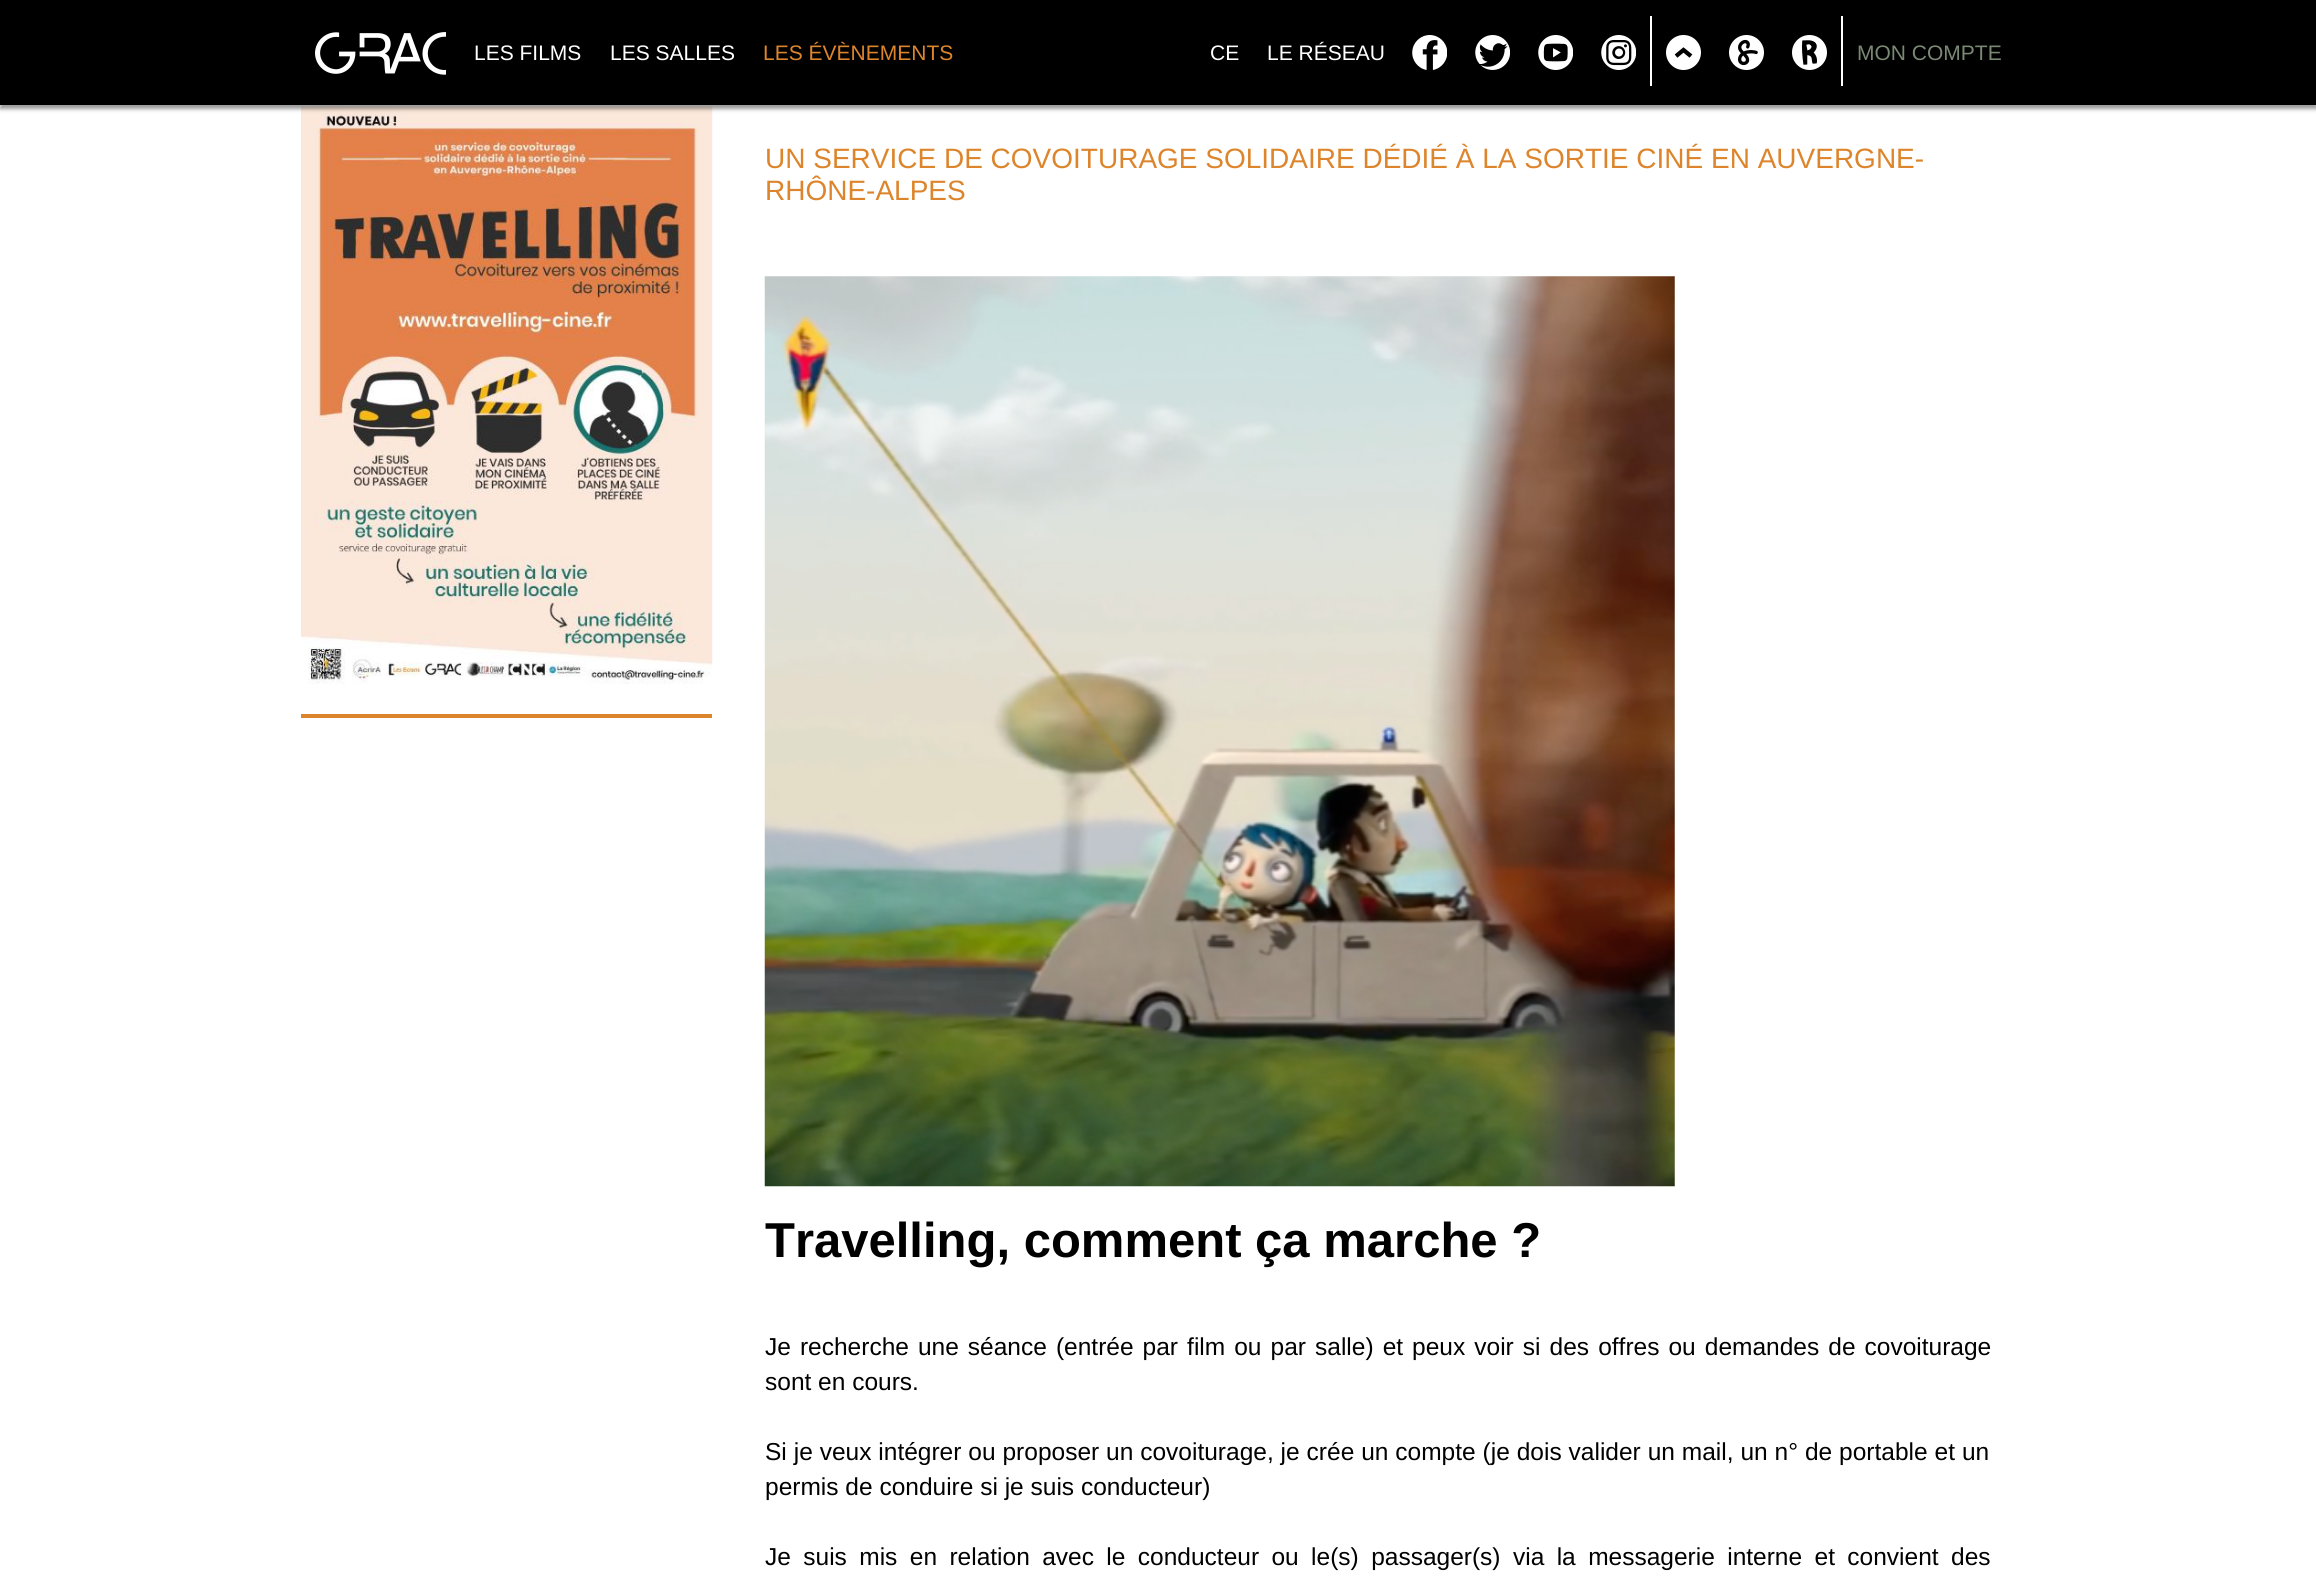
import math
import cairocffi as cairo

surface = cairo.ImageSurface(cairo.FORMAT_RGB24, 2316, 1593)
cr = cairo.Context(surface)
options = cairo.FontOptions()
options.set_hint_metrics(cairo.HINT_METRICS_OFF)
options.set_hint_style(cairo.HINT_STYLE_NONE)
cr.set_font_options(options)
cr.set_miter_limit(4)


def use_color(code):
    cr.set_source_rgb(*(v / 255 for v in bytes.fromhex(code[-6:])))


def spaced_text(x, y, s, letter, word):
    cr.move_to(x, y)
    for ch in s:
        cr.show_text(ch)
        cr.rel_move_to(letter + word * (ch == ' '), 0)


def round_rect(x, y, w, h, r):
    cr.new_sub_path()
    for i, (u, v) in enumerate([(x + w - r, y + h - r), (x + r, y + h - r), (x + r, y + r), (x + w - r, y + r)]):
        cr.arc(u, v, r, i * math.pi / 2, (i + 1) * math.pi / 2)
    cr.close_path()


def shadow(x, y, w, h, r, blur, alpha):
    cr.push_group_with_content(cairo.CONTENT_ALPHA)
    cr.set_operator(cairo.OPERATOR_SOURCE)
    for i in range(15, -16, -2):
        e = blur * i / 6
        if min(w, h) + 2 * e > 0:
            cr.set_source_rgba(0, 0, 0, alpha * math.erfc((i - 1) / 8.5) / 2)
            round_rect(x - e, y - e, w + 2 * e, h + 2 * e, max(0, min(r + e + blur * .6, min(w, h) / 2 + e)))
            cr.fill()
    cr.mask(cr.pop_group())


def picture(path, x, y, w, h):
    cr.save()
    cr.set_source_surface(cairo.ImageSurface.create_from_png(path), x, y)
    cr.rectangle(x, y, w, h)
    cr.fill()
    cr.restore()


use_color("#ffffff")
cr.paint()
picture("img9.png", 301, 106, 412, 578)
use_color("#000000")
shadow(0, 4, 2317, 105, 0, 2, 0.4)
use_color("#000000")
cr.rectangle(0, 0, 2316, 105)
cr.fill()
picture("img1.png", 315, 32, 131, 43)
cr.select_font_face("Liberation Sans")
cr.set_font_size(21)
use_color("#ffffff")
cr.move_to(474, 60)
cr.show_text("LES FILMS")
cr.move_to(610, 60)
cr.show_text("LES SALLES")
use_color("#dd852c")
cr.move_to(763, 60)
cr.show_text("LES ÉVÈNEMENTS")
use_color("#ffffff")
cr.move_to(1210, 60)
cr.show_text("CE")
cr.move_to(1267, 60)
cr.show_text("LE RÉSEAU")
picture("img2.png", 1412, 35, 35, 35)
picture("img3.png", 1475, 35, 35, 35)
picture("img4.png", 1538, 35, 35, 35)
picture("img5.png", 1601, 35, 35, 35)
cr.rectangle(1650, 16, 2, 70)
cr.fill()
picture("img6.png", 1666, 35, 35, 35)
picture("img7.png", 1729, 35, 35, 35)
picture("img8.png", 1792, 35, 35, 35)
cr.rectangle(1841, 16, 2, 70)
cr.fill()
use_color("#7a8973")
cr.move_to(1857, 60)
cr.show_text("MON COMPTE")
use_color("#dd852c")
cr.rectangle(301, 714, 411, 4)
cr.fill()
cr.set_font_size(28)
cr.move_to(765, 168)
cr.show_text("UN SERVICE DE COVOITURAGE SOLIDAIRE DÉDIÉ À LA SORTIE CINÉ EN AUVERGNE-")
cr.move_to(765, 200)
cr.show_text("RHÔNE-ALPES")
picture("img10.png", 764, 276, 911, 911)
cr.select_font_face("Liberation Sans", cairo.FONT_SLANT_NORMAL, cairo.FONT_WEIGHT_BOLD)
cr.set_font_size(49)
use_color("#000000")
cr.move_to(765, 1257)
cr.show_text("Travelling, comment ça marche ?")
cr.select_font_face("Liberation Sans")
cr.set_font_size(24.5)
spaced_text(765, 1355, "Je recherche une séance (entrée par film ou par salle) et peux voir si des offres ou demandes de covoiturage", 0, 2.25)
cr.move_to(765, 1390)
cr.show_text("sont en cours.")
spaced_text(765, 1460, "Si je veux intégrer ou proposer un covoiturage, je crée un compte (je dois valider un mail, un n° de portable et un", 0, 0.1)
cr.move_to(765, 1495)
cr.show_text("permis de conduire si je suis conducteur)")
spaced_text(765, 1565, "Je suis mis en relation avec le conducteur ou le(s) passager(s) via la messagerie interne et convient des", 0, 5.6)
surface.write_to_png("result.png")
